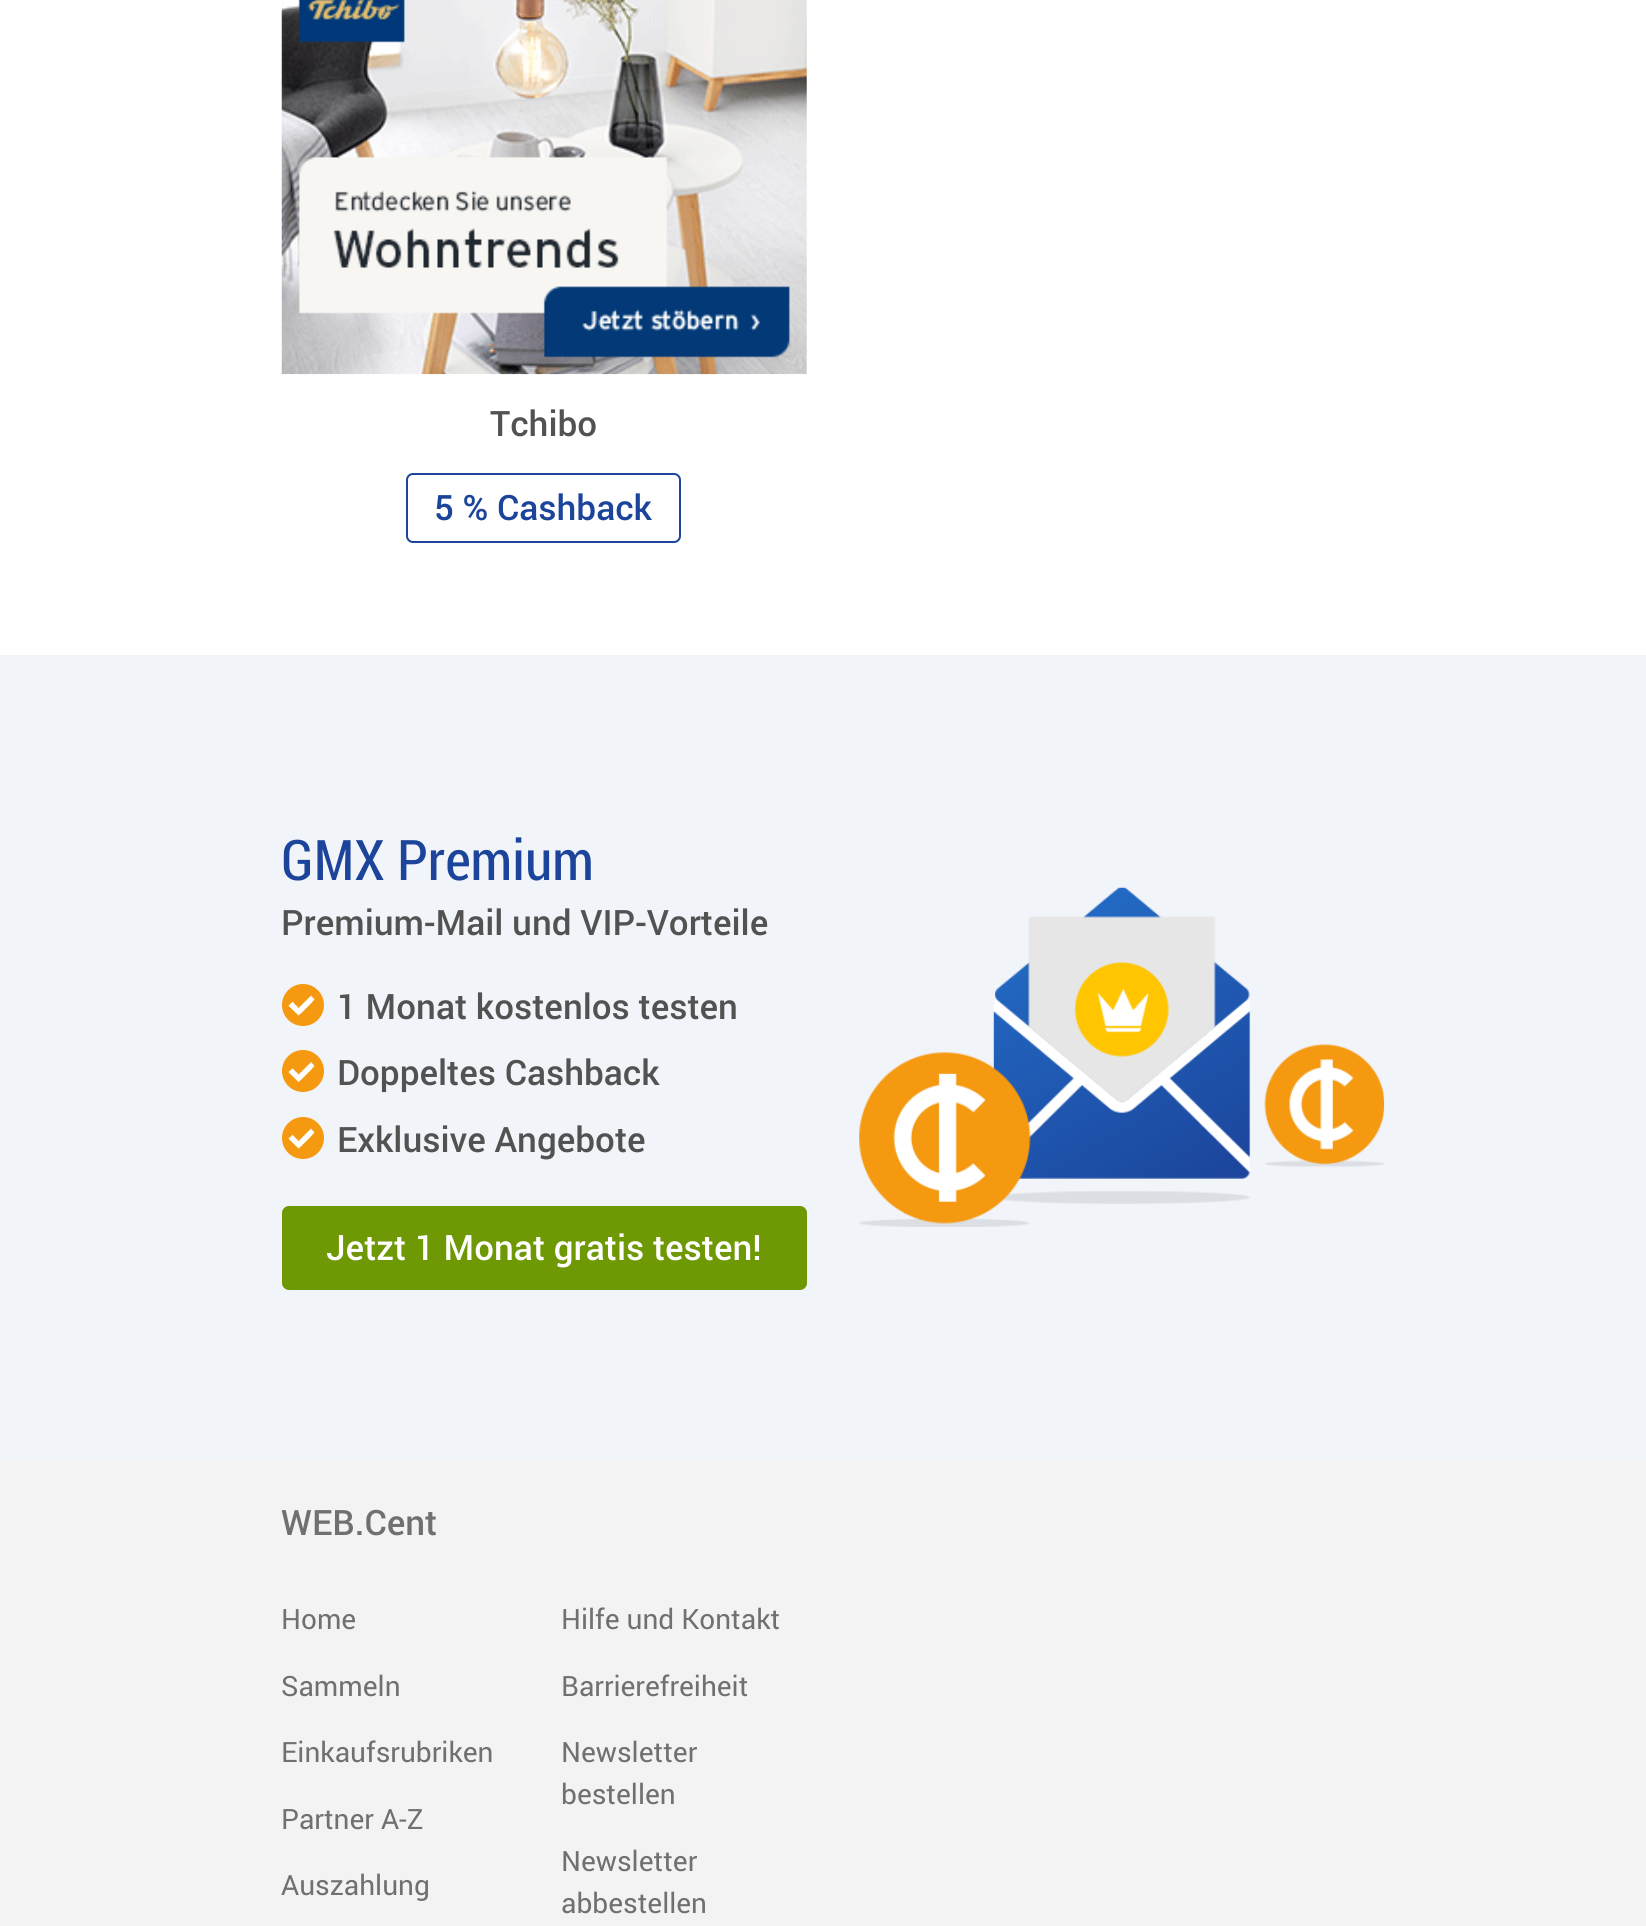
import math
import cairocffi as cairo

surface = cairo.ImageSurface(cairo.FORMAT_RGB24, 1646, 1926)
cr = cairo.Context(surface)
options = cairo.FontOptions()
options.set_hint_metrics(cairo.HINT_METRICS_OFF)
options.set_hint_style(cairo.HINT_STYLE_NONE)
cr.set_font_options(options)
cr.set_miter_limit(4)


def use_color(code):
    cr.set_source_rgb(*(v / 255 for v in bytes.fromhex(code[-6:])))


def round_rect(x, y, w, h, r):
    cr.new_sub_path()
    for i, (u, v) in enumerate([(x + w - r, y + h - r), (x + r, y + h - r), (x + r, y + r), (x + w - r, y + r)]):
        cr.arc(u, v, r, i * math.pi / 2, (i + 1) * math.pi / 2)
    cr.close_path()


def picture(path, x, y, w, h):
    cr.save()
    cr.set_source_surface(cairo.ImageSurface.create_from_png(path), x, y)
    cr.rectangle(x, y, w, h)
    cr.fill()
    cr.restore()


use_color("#ffffff")
cr.paint()
picture("img1.png", 281, 0, 526, 375)
cr.select_font_face("Roboto Medium")
cr.set_font_size(35)
use_color("#525252")
cr.move_to(490, 436)
cr.show_text("Tchibo")
round_rect(407, 474, 273, 68, 6)
use_color("#1c449b")
cr.stroke()
cr.move_to(434, 520)
cr.show_text("5 % Cashback")
use_color("#f1f4f9")
cr.rectangle(0, 655, 1646, 805)
cr.fill()
cr.select_font_face("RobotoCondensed")
cr.set_font_size(56)
use_color("#1c449b")
cr.move_to(281, 880)
cr.show_text("GMX Premium")
cr.select_font_face("Roboto Medium")
cr.set_font_size(35)
use_color("#525252")
cr.move_to(281, 935)
cr.show_text("Premium-Mail und VIP-Vorteile")
picture("img2.png", 859, 886, 526, 341)
use_color("#f59911")
cr.arc(303, 1005, 21, 0, 2 * math.pi)
cr.fill()
use_color("#525252")
cr.move_to(337, 1019)
cr.show_text("1 Monat kostenlos testen")
use_color("#ffffff")
cr.new_path()
cr.move_to(307.5, 999.5)
cr.line_to(311, 995.5)
cr.line_to(314.5, 999.5)
cr.line_to(311, 1003)
cr.close_path()
cr.fill()
cr.new_path()
cr.move_to(305, 1002)
cr.line_to(308.5, 998)
cr.line_to(312.5, 1002)
cr.line_to(308.5, 1005.5)
cr.close_path()
cr.fill()
cr.new_path()
cr.move_to(302.5, 1004.5)
cr.line_to(306, 1000.5)
cr.line_to(310, 1004.5)
cr.line_to(306, 1008)
cr.close_path()
cr.fill()
cr.new_path()
cr.move_to(300, 1007)
cr.line_to(303.5, 1003)
cr.line_to(307.5, 1007)
cr.line_to(303.5, 1010.5)
cr.close_path()
cr.fill()
cr.new_path()
cr.move_to(297.5, 1009.5)
cr.line_to(301, 1005.5)
cr.line_to(305, 1009.5)
cr.line_to(301, 1013)
cr.close_path()
cr.fill()
cr.new_path()
cr.move_to(295, 1012)
cr.line_to(298.5, 1008)
cr.line_to(302.5, 1012)
cr.line_to(298.5, 1015.5)
cr.close_path()
cr.fill()
cr.new_path()
cr.move_to(292.5, 1009.5)
cr.line_to(296, 1005.5)
cr.line_to(300, 1009.5)
cr.line_to(296, 1013)
cr.close_path()
cr.fill()
cr.new_path()
cr.move_to(290, 1007)
cr.line_to(293.5, 1003)
cr.line_to(297.5, 1007)
cr.line_to(293.5, 1010.5)
cr.close_path()
cr.fill()
cr.new_path()
cr.move_to(287.5, 1004.5)
cr.line_to(291, 1008)
cr.line_to(295, 1004.5)
cr.line_to(292.5, 1002)
cr.line_to(289, 1005.5)
cr.close_path()
cr.fill()
cr.new_path()
cr.move_to(289, 1005.5)
cr.line_to(290, 1007)
cr.line_to(293.5, 1003)
cr.line_to(292.5, 1002)
cr.close_path()
cr.fill()
use_color("#f59911")
cr.arc(303, 1071, 21, 0, 2 * math.pi)
cr.fill()
use_color("#525252")
cr.move_to(337, 1085)
cr.show_text("Doppeltes Cashback")
use_color("#ffffff")
cr.new_path()
cr.move_to(307.5, 1066)
cr.line_to(311, 1062)
cr.line_to(314.5, 1066)
cr.line_to(311, 1069.5)
cr.close_path()
cr.fill()
cr.new_path()
cr.move_to(305, 1068.5)
cr.line_to(308.5, 1064.5)
cr.line_to(312.5, 1068.5)
cr.line_to(308.5, 1072)
cr.close_path()
cr.fill()
cr.new_path()
cr.move_to(302.5, 1071)
cr.line_to(306, 1067)
cr.line_to(310, 1071)
cr.line_to(306, 1074.5)
cr.close_path()
cr.fill()
cr.new_path()
cr.move_to(300, 1073.5)
cr.line_to(303.5, 1069.5)
cr.line_to(307.5, 1073.5)
cr.line_to(303.5, 1077)
cr.close_path()
cr.fill()
cr.new_path()
cr.move_to(297.5, 1076)
cr.line_to(301, 1072)
cr.line_to(305, 1076)
cr.line_to(301, 1079.5)
cr.close_path()
cr.fill()
cr.new_path()
cr.move_to(295, 1078.5)
cr.line_to(298.5, 1074.5)
cr.line_to(302.5, 1078.5)
cr.line_to(298.5, 1082)
cr.close_path()
cr.fill()
cr.new_path()
cr.move_to(292.5, 1076)
cr.line_to(296, 1072)
cr.line_to(300, 1076)
cr.line_to(296, 1079.5)
cr.close_path()
cr.fill()
cr.new_path()
cr.move_to(290, 1073.5)
cr.line_to(293.5, 1069.5)
cr.line_to(297.5, 1073.5)
cr.line_to(293.5, 1077)
cr.close_path()
cr.fill()
cr.new_path()
cr.move_to(287.5, 1071)
cr.line_to(291, 1074.5)
cr.line_to(295, 1071)
cr.line_to(292.5, 1068.5)
cr.line_to(289, 1072)
cr.close_path()
cr.fill()
cr.new_path()
cr.move_to(289, 1072)
cr.line_to(290, 1073.5)
cr.line_to(293.5, 1069.5)
cr.line_to(292.5, 1068.5)
cr.close_path()
cr.fill()
use_color("#f59911")
cr.arc(303, 1138, 21, 0, 2 * math.pi)
cr.fill()
use_color("#525252")
cr.move_to(337, 1152)
cr.show_text("Exklusive Angebote")
use_color("#ffffff")
cr.new_path()
cr.move_to(307.5, 1132.5)
cr.line_to(311, 1128.5)
cr.line_to(314.5, 1132.5)
cr.line_to(311, 1136)
cr.close_path()
cr.fill()
cr.new_path()
cr.move_to(305, 1135)
cr.line_to(308.5, 1131)
cr.line_to(312.5, 1135)
cr.line_to(308.5, 1138.5)
cr.close_path()
cr.fill()
cr.new_path()
cr.move_to(302.5, 1137.5)
cr.line_to(306, 1133.5)
cr.line_to(310, 1137.5)
cr.line_to(306, 1141)
cr.close_path()
cr.fill()
cr.new_path()
cr.move_to(300, 1140)
cr.line_to(303.5, 1136)
cr.line_to(307.5, 1140)
cr.line_to(303.5, 1143.5)
cr.close_path()
cr.fill()
cr.new_path()
cr.move_to(297.5, 1142.5)
cr.line_to(301, 1138.5)
cr.line_to(305, 1142.5)
cr.line_to(301, 1146)
cr.close_path()
cr.fill()
cr.new_path()
cr.move_to(295, 1145)
cr.line_to(298.5, 1141)
cr.line_to(302.5, 1145)
cr.line_to(298.5, 1148.5)
cr.close_path()
cr.fill()
cr.new_path()
cr.move_to(292.5, 1142.5)
cr.line_to(296, 1138.5)
cr.line_to(300, 1142.5)
cr.line_to(296, 1146)
cr.close_path()
cr.fill()
cr.new_path()
cr.move_to(290, 1140)
cr.line_to(293.5, 1136)
cr.line_to(297.5, 1140)
cr.line_to(293.5, 1143.5)
cr.close_path()
cr.fill()
cr.new_path()
cr.move_to(287.5, 1137.5)
cr.line_to(291, 1141)
cr.line_to(295, 1137.5)
cr.line_to(292.5, 1135)
cr.line_to(289, 1138.5)
cr.close_path()
cr.fill()
cr.new_path()
cr.move_to(289, 1138.5)
cr.line_to(290, 1140)
cr.line_to(293.5, 1136)
cr.line_to(292.5, 1135)
cr.close_path()
cr.fill()
use_color("#6e9804")
round_rect(283, 1207, 523, 82, 6)
cr.fill_preserve()
cr.stroke()
use_color("#ffffff")
cr.move_to(326, 1260)
cr.show_text("Jetzt 1 Monat gratis testen!")
use_color("#f3f3f3")
cr.rectangle(0, 1460, 1646, 466)
cr.fill()
use_color("#707070")
cr.move_to(281, 1535)
cr.show_text("WEB.Cent")
cr.select_font_face("Roboto")
cr.set_font_size(28)
cr.move_to(281, 1629)
cr.show_text("Home")
cr.move_to(281, 1696)
cr.show_text("Sammeln")
cr.move_to(281, 1762)
cr.show_text("Einkaufsrubriken")
cr.move_to(281, 1829)
cr.show_text("Partner A-Z")
cr.move_to(281, 1895)
cr.show_text("Auszahlung")
cr.move_to(561, 1629)
cr.show_text("Hilfe und Kontakt")
cr.move_to(561, 1696)
cr.show_text("Barrierefreiheit")
cr.move_to(561, 1762)
cr.show_text("Newsletter")
cr.move_to(561, 1804)
cr.show_text("bestellen")
cr.move_to(561, 1871)
cr.show_text("Newsletter")
cr.move_to(561, 1913)
cr.show_text("abbestellen")
surface.write_to_png("result.png")
